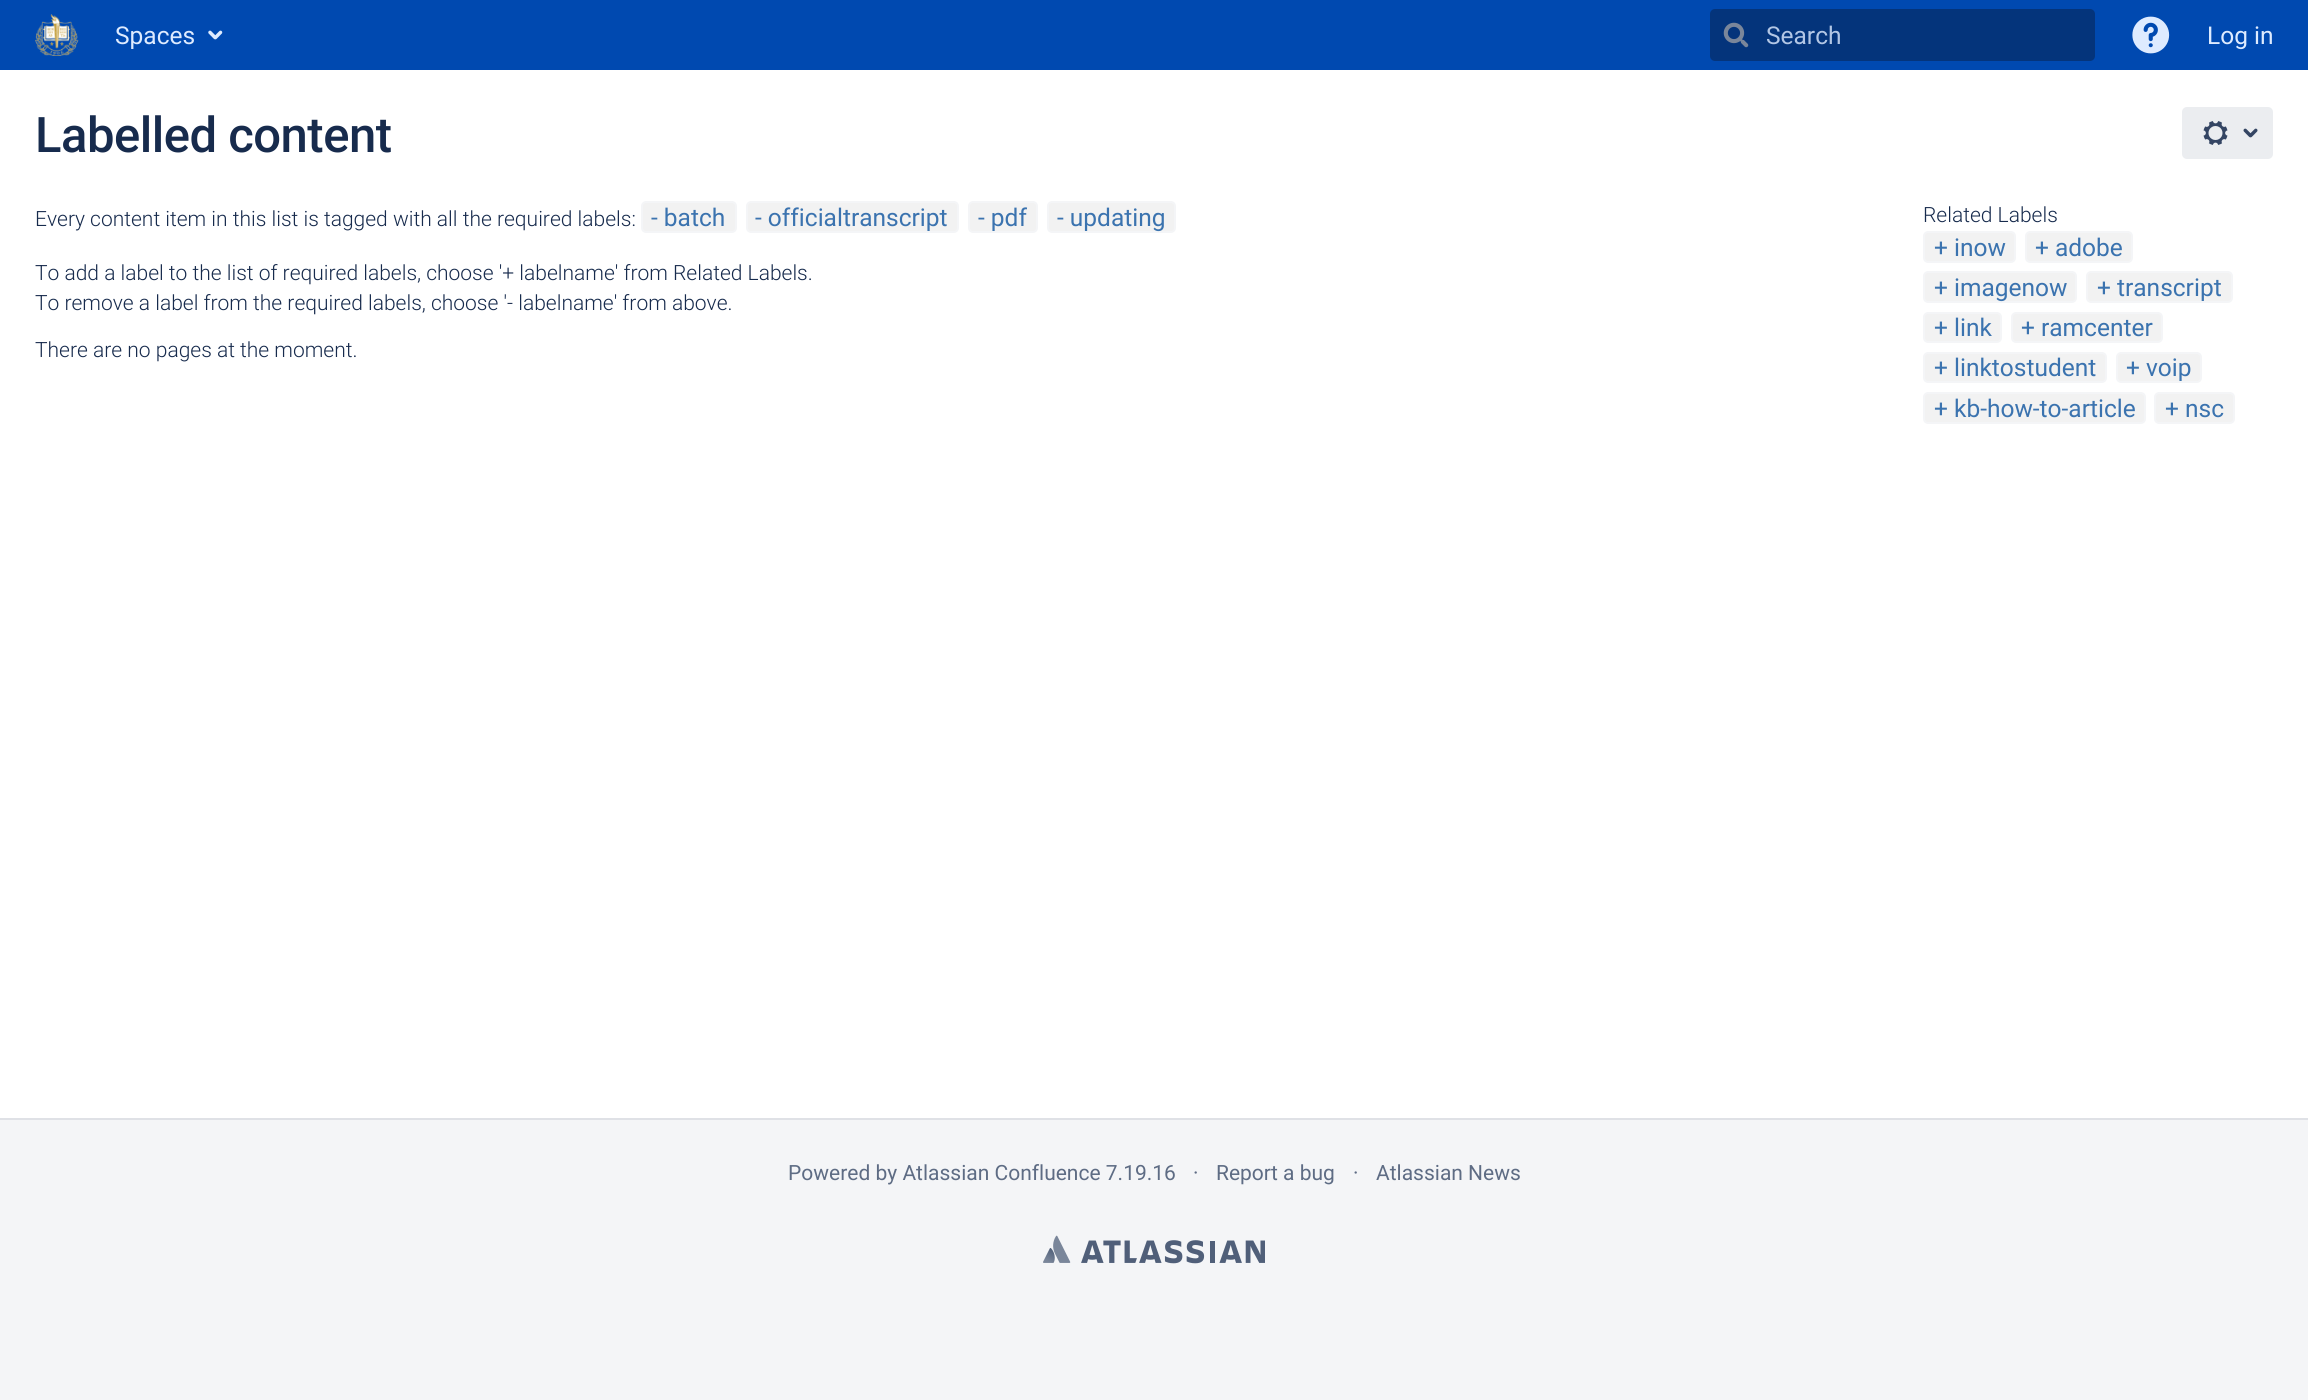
import math
import cairocffi as cairo

surface = cairo.ImageSurface(cairo.FORMAT_RGB24, 2308, 1400)
cr = cairo.Context(surface)
options = cairo.FontOptions()
options.set_hint_metrics(cairo.HINT_METRICS_OFF)
options.set_hint_style(cairo.HINT_STYLE_NONE)
cr.set_font_options(options)
cr.set_miter_limit(4)


def use_color(code):
    cr.set_source_rgb(*(v / 255 for v in bytes.fromhex(code[-6:])))


def spaced_text(x, y, s, letter, word):
    cr.move_to(x, y)
    for ch in s:
        cr.show_text(ch)
        cr.rel_move_to(letter + word * (ch == ' '), 0)


def round_rect(x, y, w, h, r):
    cr.new_sub_path()
    for i, (u, v) in enumerate([(x + w - r, y + h - r), (x + r, y + h - r), (x + r, y + r), (x + w - r, y + r)]):
        cr.arc(u, v, r, i * math.pi / 2, (i + 1) * math.pi / 2)
    cr.close_path()


def picture(path, x, y, w, h):
    cr.save()
    cr.set_source_surface(cairo.ImageSurface.create_from_png(path), x, y)
    cr.rectangle(x, y, w, h)
    cr.fill()
    cr.restore()


use_color("#f4f5f7")
cr.paint()
use_color("#0049b0")
cr.rectangle(0, 0, 2308, 70)
cr.fill()
picture("img1.png", 35, 14, 44, 42)
cr.select_font_face("Roboto")
cr.set_font_size(24.5)
use_color("#deebff")
cr.move_to(115, 44)
cr.show_text("Spaces")
picture("img2.png", 208, 30, 15, 10)
use_color("#04347b")
round_rect(1710, 9, 385, 52, 5)
cr.fill()
picture("img3.png", 1723, 22, 26, 26)
use_color("#b2c6e5")
cr.move_to(1766, 44)
cr.show_text("Search")
picture("img4.png", 2132, 16, 38, 38)
use_color("#deebff")
cr.move_to(2207, 44)
cr.show_text("Log in")
use_color("#ffffff")
cr.rectangle(0, 70, 2308, 1048)
cr.fill()
use_color("#dfe1e6")
cr.rectangle(0, 1118, 2308, 2)
cr.fill()
cr.select_font_face("Roboto Medium")
cr.set_font_size(49)
use_color("#172b4d")
spaced_text(35, 152, "Labelled content", -0.5, 0)
use_color("#ebedf0")
round_rect(2182, 107, 91, 52, 5)
cr.fill()
picture("img5.png", 2203, 121, 25, 24)
picture("img6.png", 2243, 128, 15, 10)
cr.select_font_face("Roboto Light")
cr.set_font_size(21)
use_color("#172b4d")
cr.move_to(35, 226)
cr.show_text("Every content item in this list is tagged with all the required labels:")
use_color("#f2f2f2")
round_rect(642, 202, 94, 30, 4)
cr.fill_preserve()
use_color("#f4f5f7")
cr.stroke()
cr.select_font_face("Roboto")
cr.set_font_size(24.5)
use_color("#3b73af")
cr.move_to(651, 226)
cr.show_text("- batch")
use_color("#f2f2f2")
round_rect(747, 202, 211, 30, 4)
cr.fill_preserve()
use_color("#f4f5f7")
cr.stroke()
use_color("#3b73af")
cr.move_to(755, 226)
cr.show_text("- officialtranscript")
use_color("#f2f2f2")
round_rect(969, 202, 68, 30, 4)
cr.fill_preserve()
use_color("#f4f5f7")
cr.stroke()
use_color("#3b73af")
cr.move_to(978, 226)
cr.show_text("- pdf")
use_color("#f2f2f2")
round_rect(1048, 202, 127, 30, 4)
cr.fill_preserve()
use_color("#f4f5f7")
cr.stroke()
use_color("#3b73af")
cr.move_to(1057, 226)
cr.show_text("- updating")
cr.select_font_face("Roboto Light")
cr.set_font_size(21)
use_color("#172b4d")
cr.move_to(35, 280)
cr.show_text("To add a label to the list of required labels, choose '+ labelname' from Related Labels.")
cr.move_to(35, 310)
cr.show_text("To remove a label from the required labels, choose '- labelname' from above.")
cr.move_to(35, 357)
cr.show_text("There are no pages at the moment.")
cr.move_to(1923, 222)
cr.show_text("Related Labels")
use_color("#f2f2f2")
round_rect(1924, 232, 91, 30, 4)
cr.fill_preserve()
use_color("#f4f5f7")
cr.stroke()
cr.select_font_face("Roboto")
cr.set_font_size(24.5)
use_color("#3b73af")
cr.move_to(1934, 256)
cr.show_text("+ inow")
use_color("#f2f2f2")
round_rect(2026, 232, 106, 30, 4)
cr.fill_preserve()
use_color("#f4f5f7")
cr.stroke()
use_color("#3b73af")
cr.move_to(2035, 256)
cr.show_text("+ adobe")
use_color("#f2f2f2")
round_rect(1924, 272, 152, 30, 4)
cr.fill_preserve()
use_color("#f4f5f7")
cr.stroke()
use_color("#3b73af")
cr.move_to(1934, 296)
cr.show_text("+ imagenow")
use_color("#f2f2f2")
round_rect(2087, 272, 145, 30, 4)
cr.fill_preserve()
use_color("#f4f5f7")
cr.stroke()
use_color("#3b73af")
cr.move_to(2097, 296)
cr.show_text("+ transcript")
use_color("#f2f2f2")
round_rect(1924, 313, 77, 29, 4)
cr.fill_preserve()
use_color("#f4f5f7")
cr.stroke()
use_color("#3b73af")
cr.move_to(1934, 336)
cr.show_text("+ link")
use_color("#f2f2f2")
round_rect(2012, 313, 150, 29, 4)
cr.fill_preserve()
use_color("#f4f5f7")
cr.stroke()
use_color("#3b73af")
cr.move_to(2021, 336)
cr.show_text("+ ramcenter")
use_color("#f2f2f2")
round_rect(1924, 353, 182, 29, 4)
cr.fill_preserve()
use_color("#f4f5f7")
cr.stroke()
use_color("#3b73af")
cr.move_to(1934, 376)
cr.show_text("+ linktostudent")
use_color("#f2f2f2")
round_rect(2117, 353, 84, 29, 4)
cr.fill_preserve()
use_color("#f4f5f7")
cr.stroke()
use_color("#3b73af")
cr.move_to(2126, 376)
cr.show_text("+ voip")
use_color("#f2f2f2")
round_rect(1924, 393, 221, 30, 4)
cr.fill_preserve()
use_color("#f4f5f7")
cr.stroke()
use_color("#3b73af")
cr.move_to(1934, 417)
cr.show_text("+ kb-how-to-article")
use_color("#f2f2f2")
round_rect(2155, 393, 79, 30, 4)
cr.fill_preserve()
use_color("#f4f5f7")
cr.stroke()
use_color("#3b73af")
cr.move_to(2165, 417)
cr.show_text("+ nsc")
cr.set_font_size(21)
use_color("#5e6c84")
cr.move_to(788, 1180)
cr.show_text("Powered by Atlassian Confluence 7.19.16")
cr.move_to(1193, 1180)
cr.show_text("·")
cr.move_to(1216, 1180)
cr.show_text("Report a bug")
cr.move_to(1353, 1180)
cr.show_text("·")
cr.move_to(1376, 1180)
cr.show_text("Atlassian News")
picture("img7.png", 1043, 1235, 222, 29)
surface.write_to_png("result.png")
